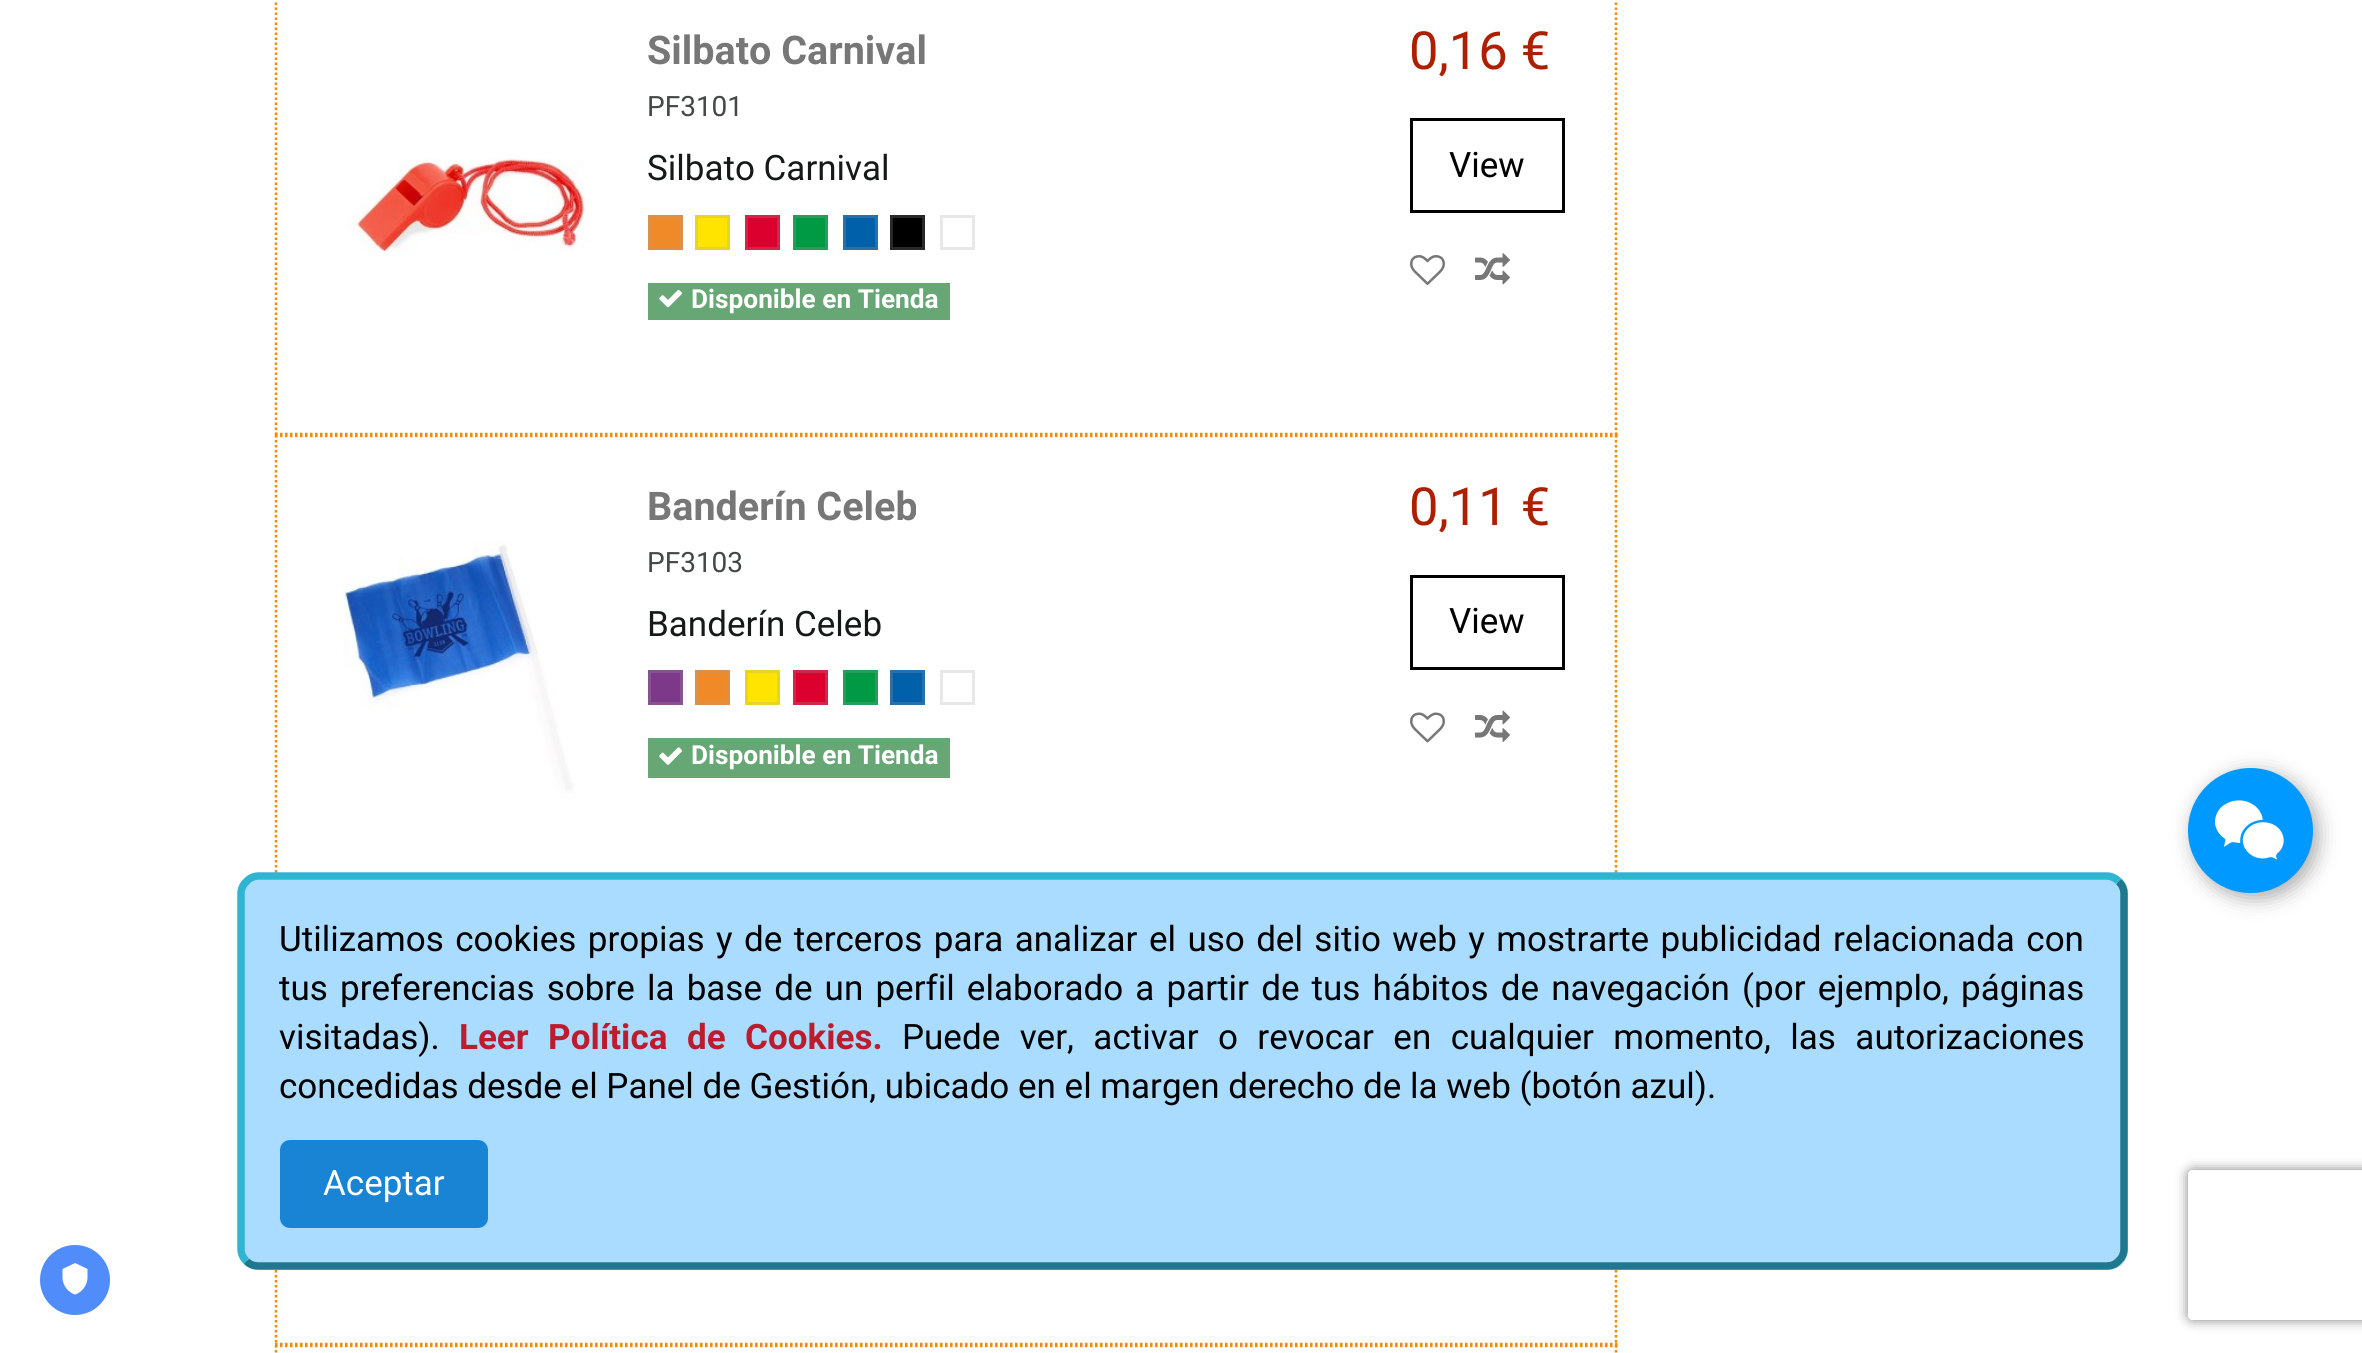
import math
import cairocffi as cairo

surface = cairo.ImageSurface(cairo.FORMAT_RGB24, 2362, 1353)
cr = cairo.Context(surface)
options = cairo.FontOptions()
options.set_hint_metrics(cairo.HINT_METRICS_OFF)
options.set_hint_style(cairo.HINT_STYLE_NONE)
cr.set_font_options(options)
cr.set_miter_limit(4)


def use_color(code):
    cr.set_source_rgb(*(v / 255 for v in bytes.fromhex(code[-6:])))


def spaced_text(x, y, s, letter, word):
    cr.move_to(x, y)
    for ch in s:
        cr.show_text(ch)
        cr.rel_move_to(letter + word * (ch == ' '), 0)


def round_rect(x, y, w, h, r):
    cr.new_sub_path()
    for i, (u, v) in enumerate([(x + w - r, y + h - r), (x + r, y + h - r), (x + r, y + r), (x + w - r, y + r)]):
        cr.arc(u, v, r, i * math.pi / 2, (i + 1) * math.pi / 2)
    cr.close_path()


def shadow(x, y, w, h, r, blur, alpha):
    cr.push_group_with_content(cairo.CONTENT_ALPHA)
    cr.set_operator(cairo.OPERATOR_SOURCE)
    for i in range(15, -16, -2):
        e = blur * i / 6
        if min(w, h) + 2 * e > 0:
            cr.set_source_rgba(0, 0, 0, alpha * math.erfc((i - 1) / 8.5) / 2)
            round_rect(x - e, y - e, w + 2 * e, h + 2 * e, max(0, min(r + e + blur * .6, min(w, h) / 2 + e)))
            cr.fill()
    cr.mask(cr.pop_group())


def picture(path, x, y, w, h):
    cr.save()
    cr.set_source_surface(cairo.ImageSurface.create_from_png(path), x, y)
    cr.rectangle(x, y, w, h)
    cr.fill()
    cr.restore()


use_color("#ffffff")
cr.paint()
cr.new_path()
cr.move_to(1616, -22.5)
cr.line_to(1616, 435)
use_color("#f68a00")
cr.set_line_width(2.5)
cr.set_dash([2.5, 2.5])
cr.stroke()
cr.new_path()
cr.move_to(275, 434)
cr.line_to(1617.5, 434)
cr.stroke()
cr.new_path()
cr.move_to(276, -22.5)
cr.line_to(276, 435)
cr.stroke()
picture("img1.png", 348, 158, 237, 96)
cr.select_font_face("Roboto", cairo.FONT_SLANT_NORMAL, cairo.FONT_WEIGHT_BOLD)
cr.set_font_size(39.5)
use_color("#777777")
cr.move_to(647, 64)
cr.show_text("Silbato Carnival")
cr.select_font_face("Roboto")
cr.set_font_size(28)
use_color("#454747")
cr.move_to(647, 116)
cr.show_text("PF3101")
cr.set_font_size(35)
use_color("#171919")
cr.move_to(647, 180)
cr.show_text("Silbato Carnival")
use_color("#f08927")
cr.rectangle(649.5, 216.5, 32, 32)
cr.fill_preserve()
use_color("#dc8f46")
cr.set_line_width(3)
cr.set_dash([])
cr.stroke()
use_color("#ffe400")
cr.rectangle(696.5, 216.5, 32, 32)
cr.fill_preserve()
use_color("#e8d328")
cr.stroke()
use_color("#dc002e")
cr.rectangle(746.5, 216.5, 32, 32)
cr.fill_preserve()
use_color("#cd284b")
cr.stroke()
use_color("#009a44")
cr.rectangle(794.5, 216.5, 32, 32)
cr.fill_preserve()
use_color("#289c5b")
cr.stroke()
use_color("#0060a9")
cr.rectangle(844.5, 216.5, 32, 32)
cr.fill_preserve()
use_color("#2870a7")
cr.stroke()
use_color("#000000")
cr.rectangle(891.5, 216.5, 32, 32)
cr.fill_preserve()
use_color("#282828")
cr.stroke()
cr.rectangle(941.5, 216.5, 32, 32)
use_color("#e8e8e8")
cr.stroke()
use_color("#67a675")
cr.rectangle(648, 283, 302, 37)
cr.fill()
picture("img2.png", 659, 289, 23, 19)
cr.select_font_face("Roboto", cairo.FONT_SLANT_NORMAL, cairo.FONT_WEIGHT_BOLD)
cr.set_font_size(26.25)
use_color("#ffffff")
cr.move_to(691, 308)
cr.show_text("Disponible en Tienda")
cr.select_font_face("Roboto")
cr.set_font_size(52.5)
use_color("#ad1f00")
cr.move_to(1409, 69)
cr.show_text("0,16 €")
cr.rectangle(1411.5, 119.5, 152, 92)
use_color("#000000")
cr.stroke()
cr.set_font_size(35)
cr.move_to(1449, 177)
cr.show_text("View")
picture("img3.png", 1410, 255, 35, 30)
picture("img4.png", 1475, 253, 35, 32)
cr.new_path()
cr.move_to(275, 436)
cr.line_to(1617.5, 436)
use_color("#f68a00")
cr.set_line_width(2.5)
cr.set_dash([2.5, 2.5])
cr.stroke()
cr.new_path()
cr.move_to(1616, 435)
cr.line_to(1616, 890)
cr.stroke()
cr.new_path()
cr.move_to(276, 435)
cr.line_to(276, 890)
cr.stroke()
picture("img5.png", 343, 540, 231, 253)
cr.select_font_face("Roboto", cairo.FONT_SLANT_NORMAL, cairo.FONT_WEIGHT_BOLD)
cr.set_font_size(39.5)
use_color("#777777")
cr.move_to(647, 520)
cr.show_text("Banderín Celeb")
cr.select_font_face("Roboto")
cr.set_font_size(28)
use_color("#454747")
cr.move_to(647, 572)
cr.show_text("PF3103")
cr.set_font_size(35)
use_color("#171919")
cr.move_to(647, 636)
cr.show_text("Banderín Celeb")
use_color("#7e388a")
cr.rectangle(649.5, 671.5, 32, 32)
cr.fill_preserve()
use_color("#875290")
cr.set_line_width(3)
cr.set_dash([])
cr.stroke()
use_color("#f08927")
cr.rectangle(696.5, 671.5, 32, 32)
cr.fill_preserve()
use_color("#dc8f46")
cr.stroke()
use_color("#ffe400")
cr.rectangle(746.5, 671.5, 32, 32)
cr.fill_preserve()
use_color("#e8d328")
cr.stroke()
use_color("#dc002e")
cr.rectangle(794.5, 671.5, 32, 32)
cr.fill_preserve()
use_color("#cd284b")
cr.stroke()
use_color("#009a44")
cr.rectangle(844.5, 671.5, 32, 32)
cr.fill_preserve()
use_color("#289c5b")
cr.stroke()
use_color("#0060a9")
cr.rectangle(891.5, 671.5, 32, 32)
cr.fill_preserve()
use_color("#2870a7")
cr.stroke()
cr.rectangle(941.5, 671.5, 32, 32)
use_color("#e8e8e8")
cr.stroke()
use_color("#67a675")
cr.rectangle(648, 738, 302, 40)
cr.fill()
picture("img6.png", 659, 747, 23, 18)
cr.select_font_face("Roboto", cairo.FONT_SLANT_NORMAL, cairo.FONT_WEIGHT_BOLD)
cr.set_font_size(26.25)
use_color("#ffffff")
cr.move_to(691, 764)
cr.show_text("Disponible en Tienda")
cr.select_font_face("Roboto")
cr.set_font_size(52.5)
use_color("#ad1f00")
cr.move_to(1409, 525)
cr.show_text("0,11 €")
cr.rectangle(1411.5, 576.5, 152, 92)
use_color("#000000")
cr.stroke()
cr.set_font_size(35)
cr.move_to(1449, 633)
cr.show_text("View")
picture("img7.png", 1410, 712, 35, 31)
picture("img8.png", 1475, 710, 35, 32)
cr.new_path()
cr.move_to(1616, 890)
cr.line_to(1616, 1345)
use_color("#f68a00")
cr.set_line_width(2.5)
cr.set_dash([2.5, 2.5])
cr.stroke()
cr.new_path()
cr.move_to(275, 1344)
cr.line_to(1617.5, 1344)
cr.stroke()
cr.new_path()
cr.move_to(276, 890)
cr.line_to(276, 1345)
cr.stroke()
cr.new_path()
cr.move_to(275, 1346)
cr.line_to(1617.5, 1346)
cr.stroke()
cr.new_path()
cr.move_to(1616, 1345)
cr.line_to(1616, 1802.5)
cr.stroke()
cr.new_path()
cr.move_to(276, 1345)
cr.line_to(276, 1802.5)
cr.stroke()
use_color("#aaaaaa")
shadow(2193, 773, 125, 125, 62.5, 10, 1)
use_color("#0099ff")
cr.arc(2250.5, 830.5, 62.5, 0, 2 * math.pi)
cr.fill()
picture("img9.png", 2215, 800, 69, 60)
use_color("#aadcff")
round_rect(238, 873, 1890, 397, 20)
cr.fill()
cr.new_path()
cr.move_to(2118.5, 881.5)
cr.curve_to(2122, 884.5, 2124, 889, 2124, 893.5)
cr.line_to(2124, 1249)
cr.curve_to(2124, 1253.5, 2122, 1258, 2118.5, 1261)
cr.curve_to(2115.5, 1264.5, 2111, 1266, 2106.5, 1266)
cr.line_to(258.5, 1266)
cr.curve_to(254, 1266, 249.5, 1264.5, 246.5, 1261)
use_color("#1f798c")
cr.set_line_width(7.5)
cr.set_dash([])
cr.stroke()
cr.new_path()
cr.move_to(246.5, 1261)
cr.curve_to(243, 1258, 241, 1253.5, 241, 1249)
cr.line_to(241, 893.5)
cr.curve_to(241, 889, 243, 884.5, 246.5, 881.5)
cr.curve_to(249.5, 878, 254, 876, 258.5, 876)
cr.line_to(2106.5, 876)
cr.curve_to(2111, 876, 2115.5, 878, 2118.5, 881.5)
use_color("#2fb5d2")
cr.stroke()
use_color("#000000")
spaced_text(279, 951, "Utilizamos cookies propias y de terceros para analizar el uso del sitio web y mostrarte publicidad relacionada con", 0, 2.75)
spaced_text(279, 1000, "tus preferencias sobre la base de un perfil elaborado a partir de tus hábitos de navegación (por ejemplo, páginas", 0, 3.5)
cr.move_to(279, 1049)
cr.show_text("visitadas).")
cr.select_font_face("Roboto", cairo.FONT_SLANT_NORMAL, cairo.FONT_WEIGHT_BOLD)
use_color("#bd1b2e")
spaced_text(459, 1049, "Leer Política de Cookies.", 0, 10.75)
cr.select_font_face("Roboto")
use_color("#000000")
spaced_text(902, 1049, "Puede ver, activar o revocar en cualquier momento, las autorizaciones", 0, 10.75)
cr.move_to(279, 1098)
cr.show_text("concedidas desde el Panel de Gestión, ubicado en el margen derecho de la web (botón azul).")
use_color("#1a84d4")
round_rect(280, 1140, 208, 88, 10)
cr.fill()
use_color("#ffffff")
cr.move_to(323, 1195)
cr.show_text("Aceptar")
use_color("#508dfa")
cr.new_path()
cr.arc(75, 1280, 35, 0, 2 * math.pi)
cr.fill()
use_color("#ffffff")
cr.set_fill_rule(cairo.FILL_RULE_EVEN_ODD)
cr.new_path()
cr.move_to(75, 1263)
cr.line_to(62.5, 1269)
cr.line_to(62.5, 1277.5)
cr.curve_to(62.5, 1285, 68, 1292.5, 75, 1294.5)
cr.curve_to(82, 1292.5, 87.5, 1285, 87.5, 1277.5)
cr.line_to(87.5, 1269)
cr.close_path()
cr.fill()
cr.save()
cr.new_path()
cr.move_to(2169, 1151)
cr.line_to(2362, 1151)
cr.line_to(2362, 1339)
cr.line_to(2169, 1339)
cr.close_path()
cr.move_to(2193, 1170)
cr.line_to(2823, 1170)
cr.curve_to(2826, 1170, 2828, 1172, 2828, 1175)
cr.line_to(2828, 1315)
cr.curve_to(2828, 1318, 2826, 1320, 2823, 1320)
cr.line_to(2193, 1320)
cr.curve_to(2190, 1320, 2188, 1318, 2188, 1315)
cr.line_to(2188, 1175)
cr.curve_to(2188, 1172, 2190, 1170, 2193, 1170)
cr.close_path()
cr.clip()
use_color("#808080")
shadow(2188, 1170, 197, 150, 5, 6, 1)
cr.restore()
surface.write_to_png("result.png")
